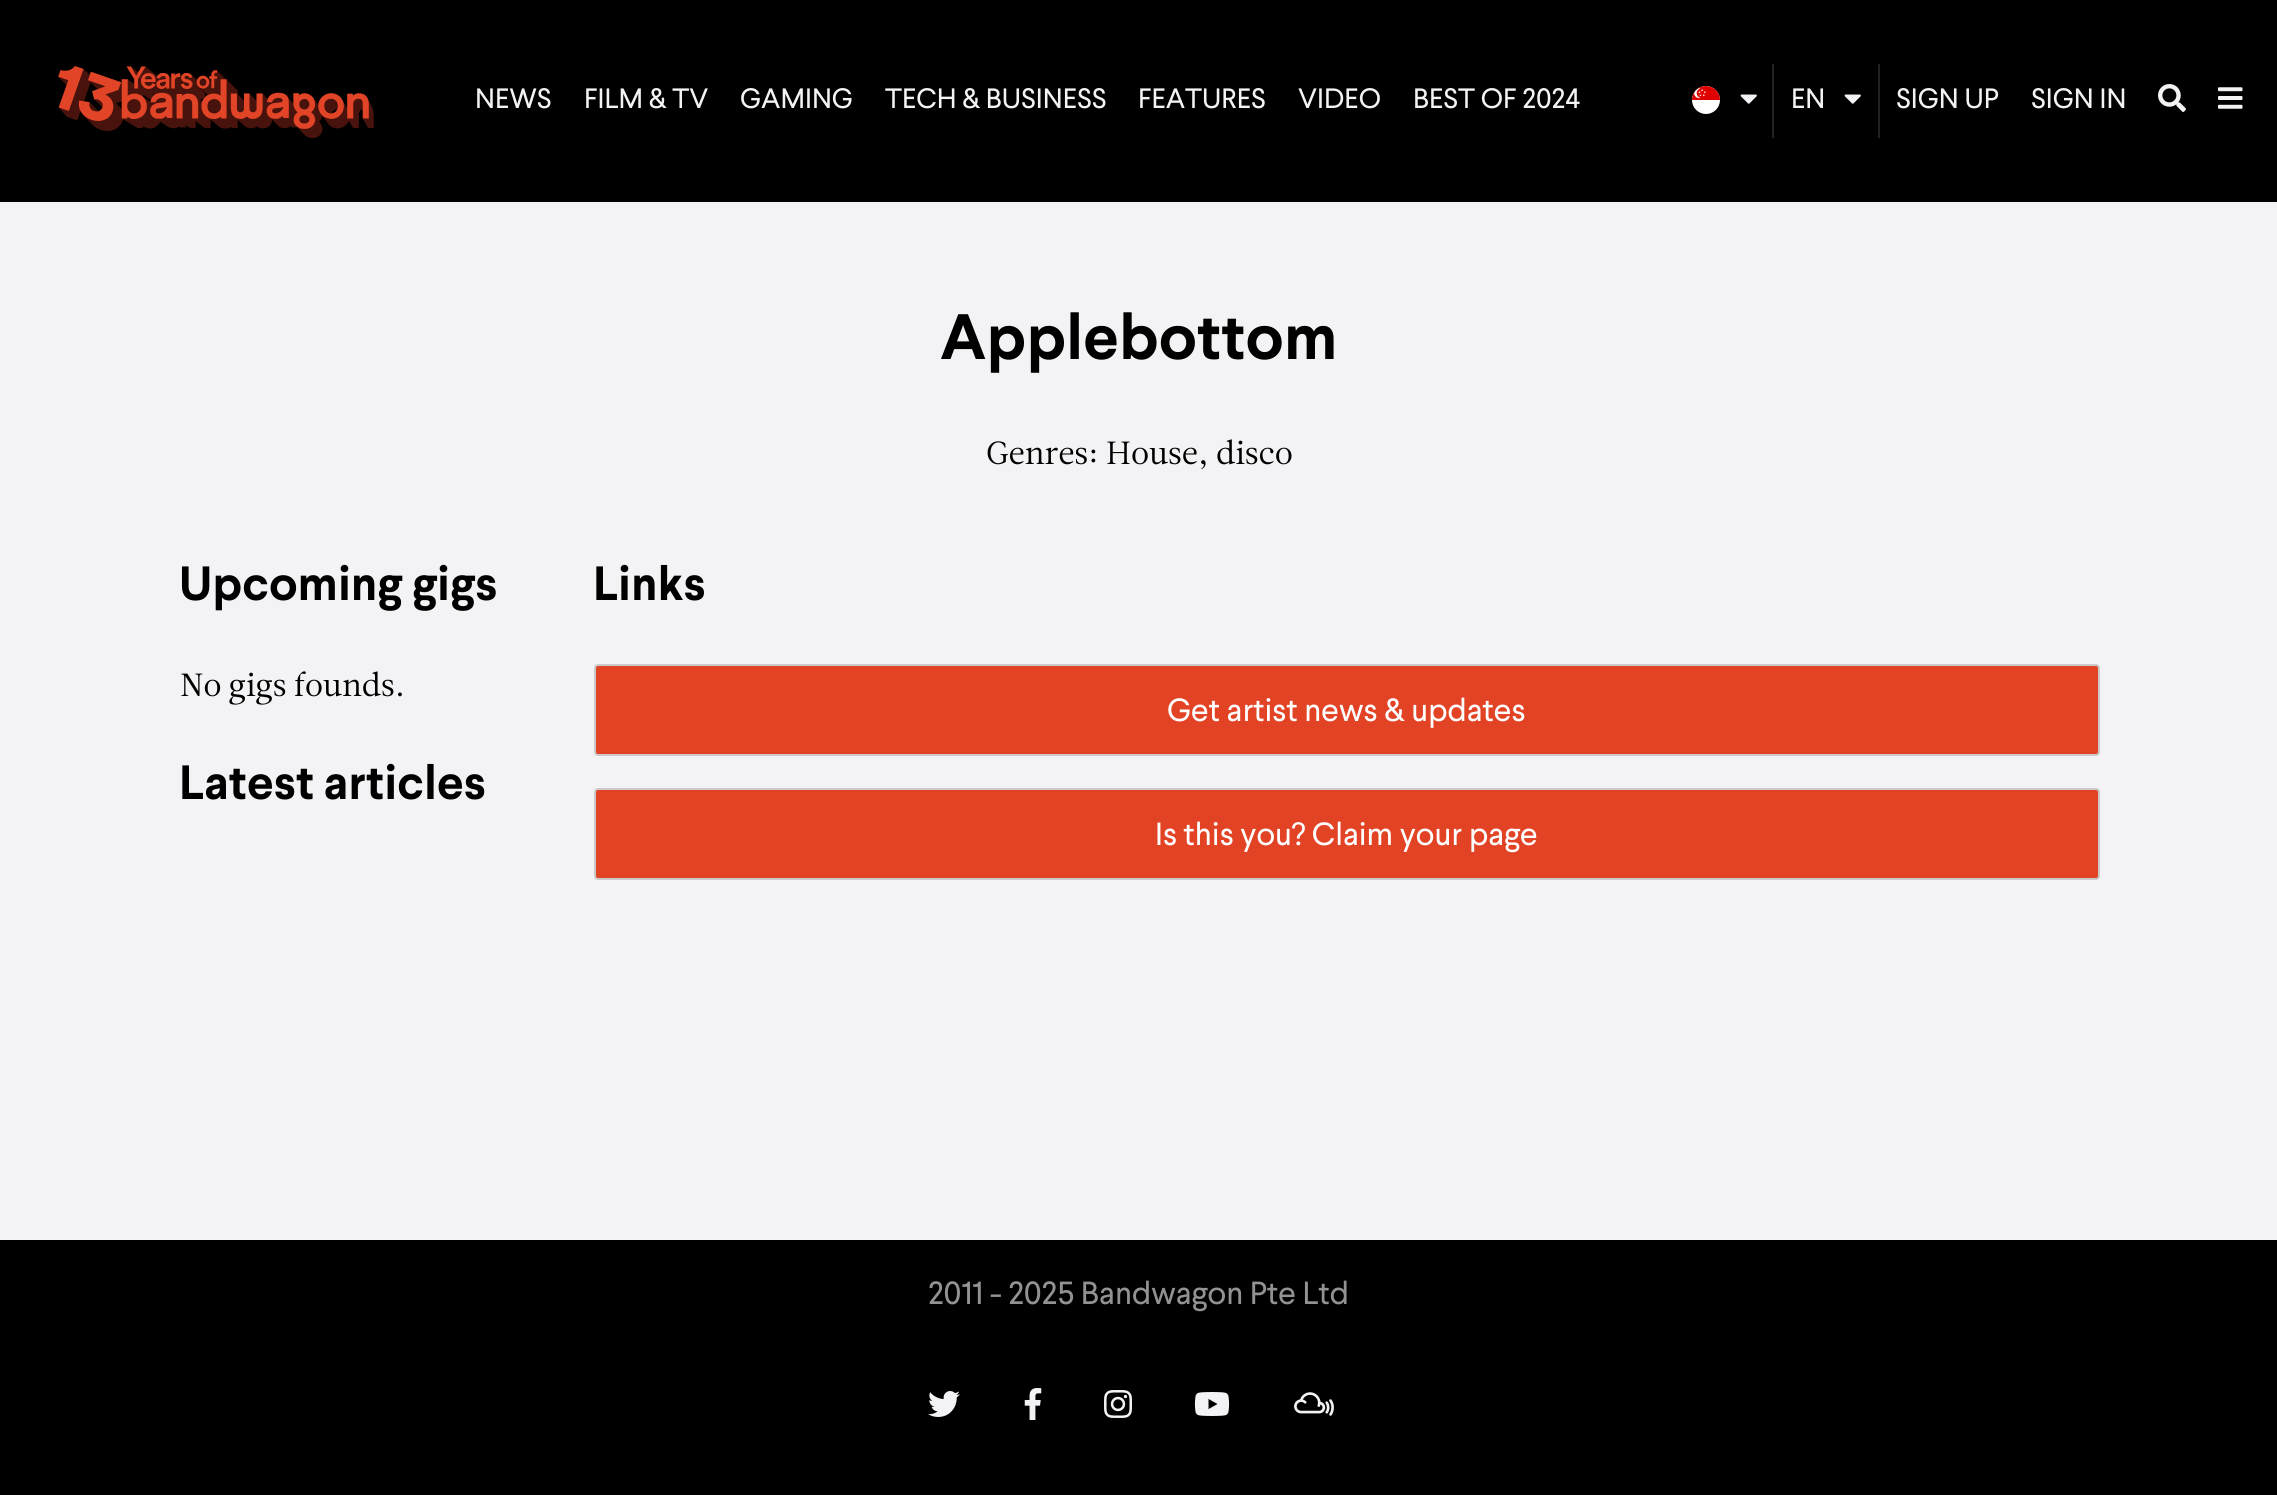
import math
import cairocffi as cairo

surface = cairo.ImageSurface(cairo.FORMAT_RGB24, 2277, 1495)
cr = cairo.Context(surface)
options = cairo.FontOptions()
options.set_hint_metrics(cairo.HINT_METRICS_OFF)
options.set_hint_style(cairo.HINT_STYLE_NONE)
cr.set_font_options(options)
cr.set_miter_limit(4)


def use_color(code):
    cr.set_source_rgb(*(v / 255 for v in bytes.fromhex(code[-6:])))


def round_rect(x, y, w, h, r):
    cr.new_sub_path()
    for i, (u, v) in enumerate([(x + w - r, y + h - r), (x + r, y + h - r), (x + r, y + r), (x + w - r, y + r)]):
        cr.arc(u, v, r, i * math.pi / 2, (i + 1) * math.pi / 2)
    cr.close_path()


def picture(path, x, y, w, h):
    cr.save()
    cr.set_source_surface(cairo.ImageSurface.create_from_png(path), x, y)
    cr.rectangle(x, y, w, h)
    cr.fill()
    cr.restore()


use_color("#f3f3f5")
cr.paint()
use_color("#000000")
cr.rectangle(0, 0, 2277, 202)
cr.fill()
picture("img1.png", 58, 66, 316, 72)
cr.select_font_face("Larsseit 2")
cr.set_font_size(28)
use_color("#f3f3f5")
cr.move_to(475, 108)
cr.show_text("NEWS")
cr.move_to(584, 108)
cr.show_text("FILM & TV")
cr.move_to(740, 108)
cr.show_text("GAMING")
cr.move_to(885, 108)
cr.show_text("TECH & BUSINESS")
cr.move_to(1138, 108)
cr.show_text("FEATURES")
cr.move_to(1298, 108)
cr.show_text("VIDEO")
cr.move_to(1413, 108)
cr.show_text("BEST OF 2024")
use_color("#222222")
cr.rectangle(1772, 64, 2, 74)
cr.fill()
picture("img2.png", 1692, 86, 28, 28)
picture("img3.png", 1740, 94, 17, 10)
cr.rectangle(1878, 64, 2, 74)
cr.fill()
use_color("#f3f3f5")
cr.move_to(1791, 108)
cr.show_text("EN")
picture("img3.png", 1844, 94, 17, 10)
cr.move_to(1896, 108)
cr.show_text("SIGN UP")
cr.move_to(2031, 108)
cr.show_text("SIGN IN")
picture("img4.png", 2158, 84, 28, 28)
picture("img5.png", 2218, 87, 25, 22)
cr.select_font_face("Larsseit")
cr.set_font_size(64)
use_color("#000000")
cr.move_to(940, 359)
cr.show_text("Applebottom")
picture("img6.png", 987, 441, 109, 24)
picture("img7.png", 1107, 439, 185, 30)
cr.set_font_size(48)
cr.move_to(179, 600)
cr.show_text("Upcoming gigs")
picture("img8.png", 181, 671, 221, 34)
cr.move_to(179, 799)
cr.show_text("Latest articles")
cr.move_to(593, 600)
cr.show_text("Links")
use_color("#e24325")
round_rect(595, 665, 1504, 90, 3)
cr.fill_preserve()
use_color("#cbcbcb")
cr.stroke()
cr.select_font_face("Larsseit 2")
cr.set_font_size(32)
use_color("#ffffff")
cr.move_to(1167, 721)
cr.show_text("Get artist news & updates")
use_color("#e24325")
round_rect(595, 789, 1504, 90, 3)
cr.fill_preserve()
use_color("#cbcbcb")
cr.stroke()
use_color("#ffffff")
cr.move_to(1155, 845)
cr.show_text("Is this you? Claim your page")
use_color("#000000")
cr.rectangle(0, 1240, 2277, 255)
cr.fill()
use_color("#929292")
cr.move_to(928, 1304)
cr.show_text("2011 - 2025 Bandwagon Pte Ltd")
picture("img9.png", 928, 1391, 32, 26)
picture("img10.png", 1024, 1388, 18, 32)
picture("img11.png", 1104, 1390, 28, 28)
picture("img12.png", 1194, 1392, 36, 24)
picture("img13.png", 1294, 1392, 40, 24)
surface.write_to_png("result.png")
